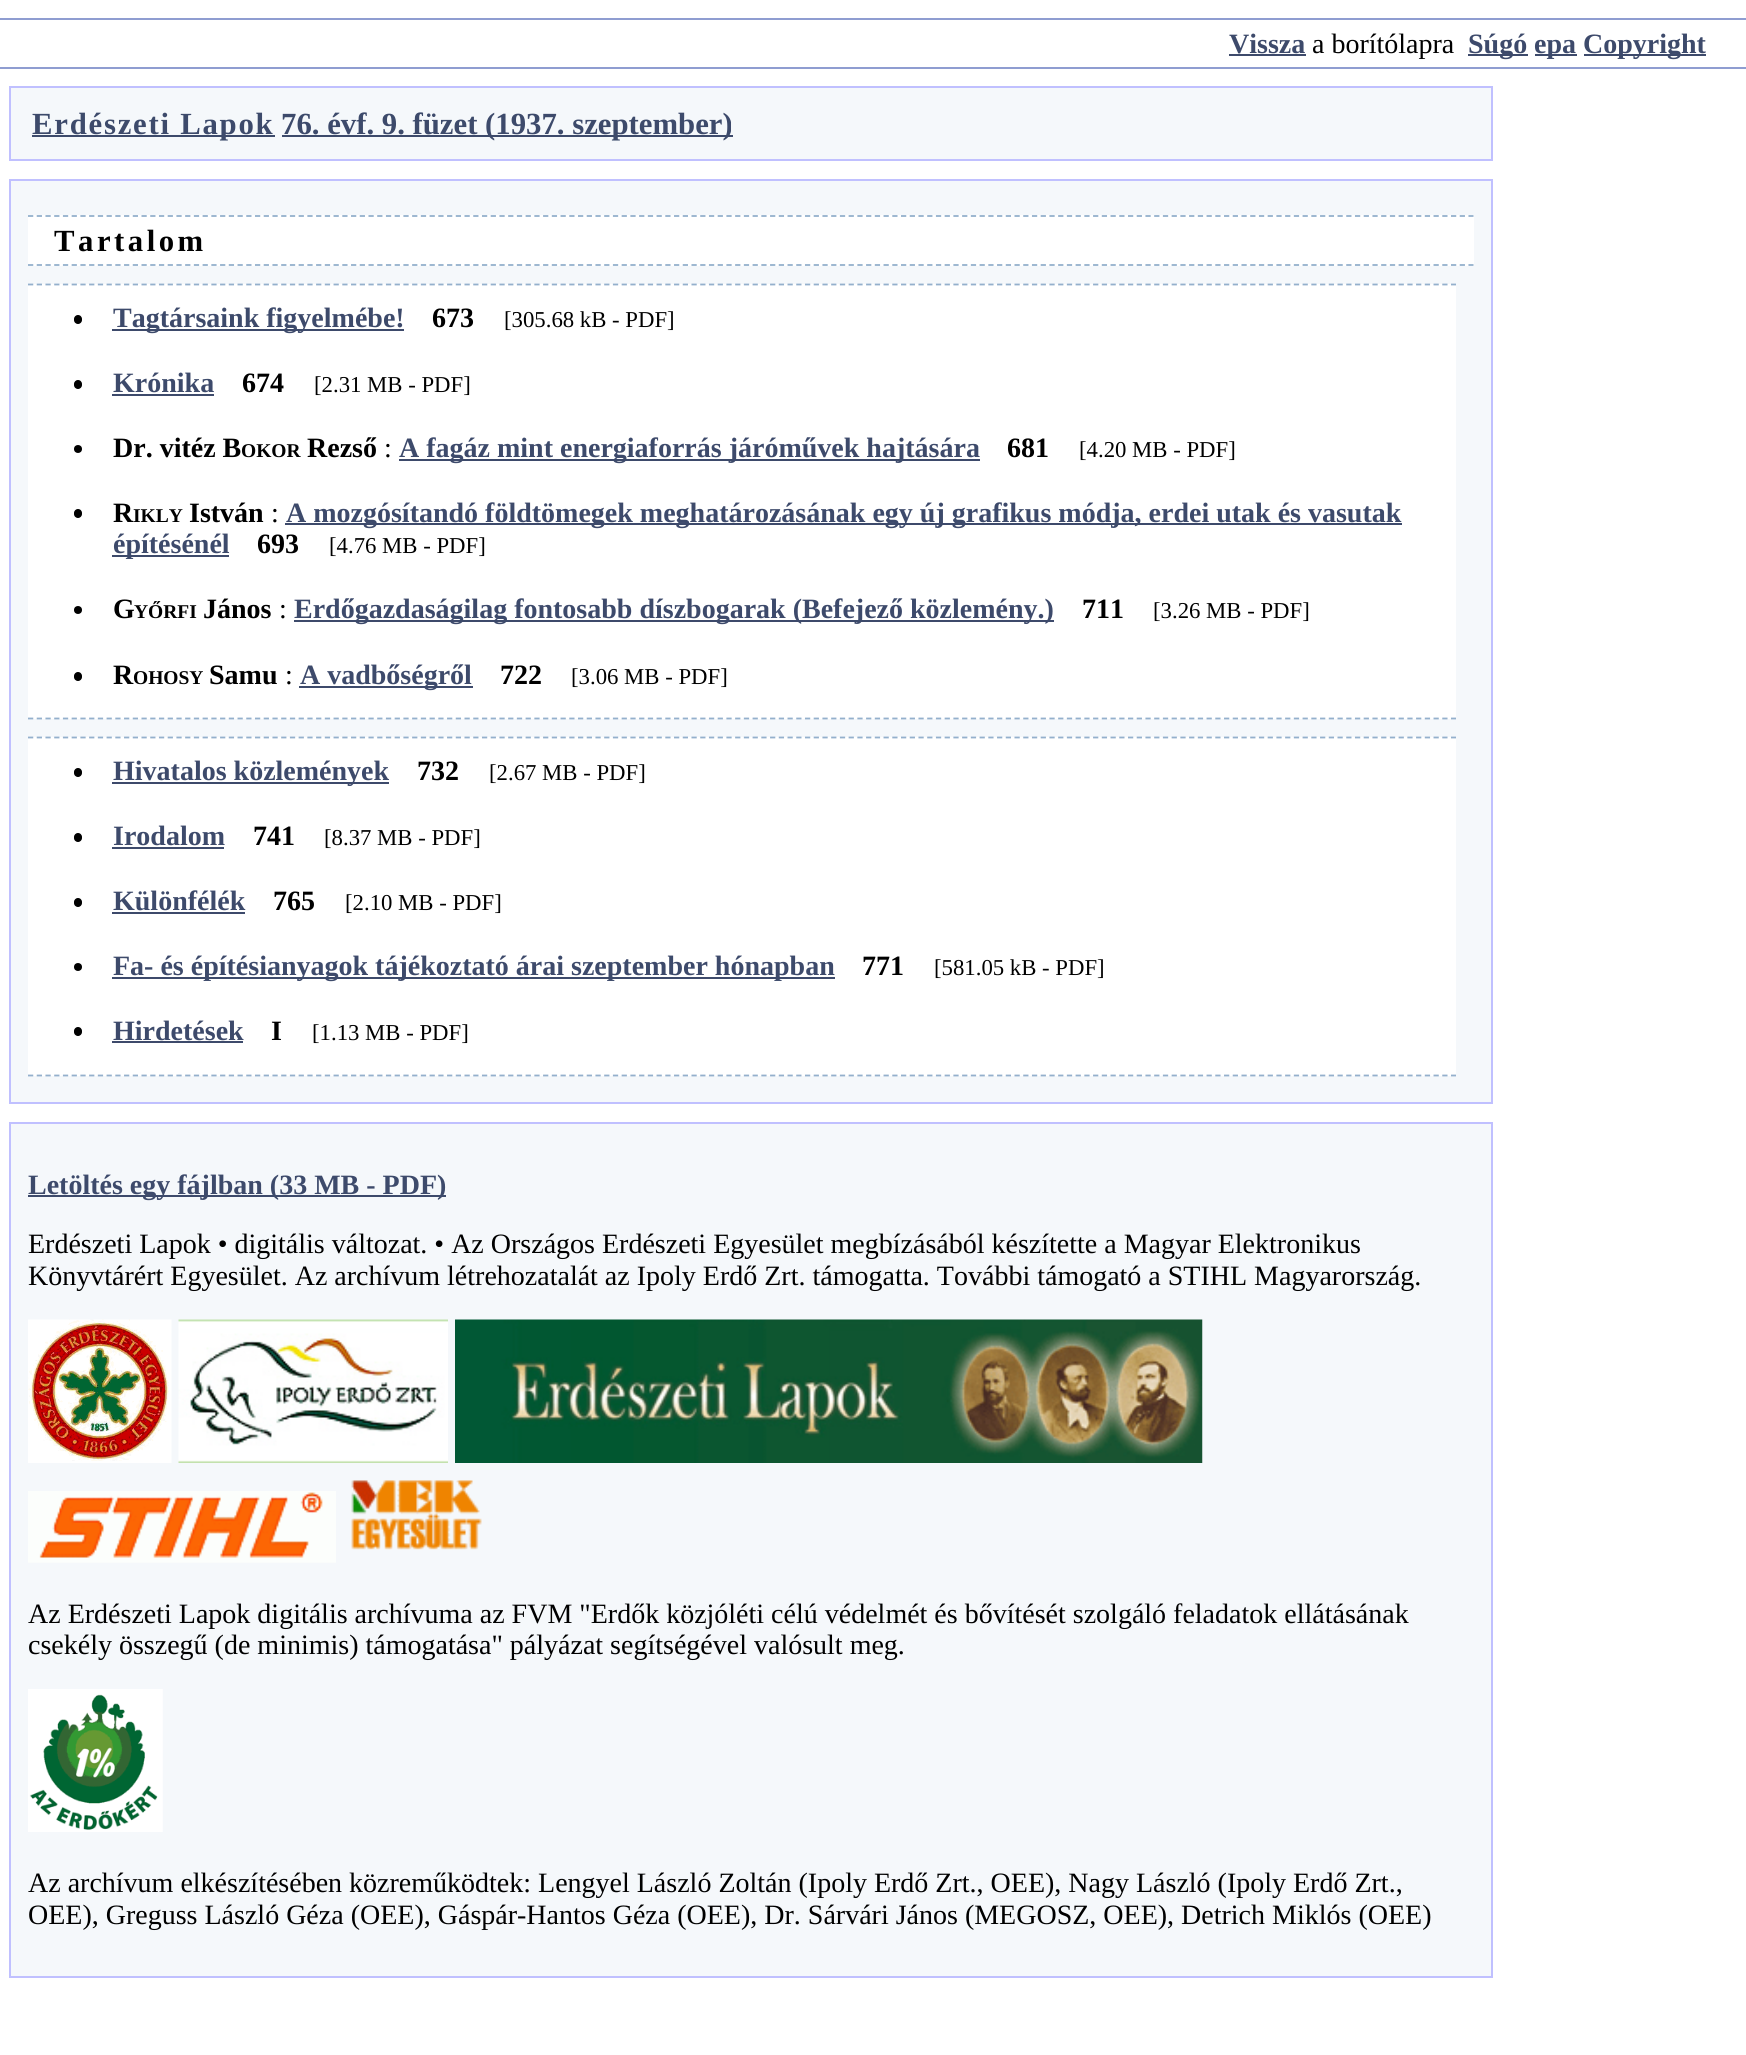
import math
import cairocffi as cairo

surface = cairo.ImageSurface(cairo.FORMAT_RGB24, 1746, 2055)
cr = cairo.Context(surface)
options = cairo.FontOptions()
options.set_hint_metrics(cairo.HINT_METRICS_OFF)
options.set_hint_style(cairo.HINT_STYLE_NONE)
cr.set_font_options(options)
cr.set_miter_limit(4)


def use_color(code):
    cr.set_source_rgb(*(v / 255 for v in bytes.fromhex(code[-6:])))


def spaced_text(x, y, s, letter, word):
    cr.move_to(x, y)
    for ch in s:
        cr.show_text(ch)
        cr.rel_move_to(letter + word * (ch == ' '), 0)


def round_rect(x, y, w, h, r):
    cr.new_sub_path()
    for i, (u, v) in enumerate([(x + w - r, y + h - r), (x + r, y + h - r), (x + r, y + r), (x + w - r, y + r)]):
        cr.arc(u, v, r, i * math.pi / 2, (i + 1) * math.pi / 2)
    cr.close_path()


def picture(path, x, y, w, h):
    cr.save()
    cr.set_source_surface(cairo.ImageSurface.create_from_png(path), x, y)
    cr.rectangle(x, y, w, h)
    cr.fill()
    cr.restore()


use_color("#ffffff")
cr.paint()
use_color("#8f9dd1")
cr.rectangle(0, 18, 1746, 2)
cr.fill()
cr.rectangle(0, 67, 1746, 2)
cr.fill()
cr.select_font_face("Liberation Serif", cairo.FONT_SLANT_NORMAL, cairo.FONT_WEIGHT_BOLD)
cr.set_font_size(28)
use_color("#3d4a6b")
cr.move_to(1229, 53)
cr.show_text("Vissza")
cr.rectangle(1229, 54, 77, 2)
cr.fill()
cr.select_font_face("Liberation Serif")
use_color("#000000")
cr.move_to(1312, 53)
cr.show_text("a borítólapra")
use_color("#3d4a6b")
cr.rectangle(1468, 54, 60, 2)
cr.fill()
cr.select_font_face("Liberation Serif", cairo.FONT_SLANT_NORMAL, cairo.FONT_WEIGHT_BOLD)
cr.move_to(1468, 53)
cr.show_text("Súgó")
cr.rectangle(1535, 54, 42, 2)
cr.fill()
cr.move_to(1534, 53)
cr.show_text("epa")
cr.rectangle(1584, 54, 122, 2)
cr.fill()
cr.move_to(1583, 53)
cr.show_text("Copyright")
use_color("#f5f8fb")
cr.rectangle(10, 87, 1482, 73)
cr.fill_preserve()
use_color("#c0c0ff")
cr.stroke()
use_color("#3d4a6b")
cr.rectangle(32, 135, 243, 2)
cr.fill()
cr.set_font_size(30.75)
spaced_text(32, 134, "Erdészeti Lapok", 1.75, 0)
cr.rectangle(282, 135, 451, 2)
cr.fill()
cr.move_to(281, 134)
cr.show_text("76. évf. 9. füzet (1937. szeptember)")
use_color("#f5f8fb")
cr.rectangle(10, 180, 1482, 923)
cr.fill_preserve()
use_color("#c0c0ff")
cr.stroke()
use_color("#ffffff")
cr.rectangle(28, 215, 1446, 51)
cr.fill()
cr.new_path()
cr.move_to(28, 216)
cr.line_to(1473.5, 216)
use_color("#94b0cc")
cr.set_line_width(1.8)
cr.set_dash([5.25, 3.48])
cr.stroke()
cr.new_path()
cr.move_to(28, 265)
cr.line_to(1473.5, 265)
cr.stroke()
use_color("#000000")
spaced_text(54, 251, "Tartalom", 3.5, 0)
use_color("#ffffff")
cr.rectangle(28, 284, 1428, 435)
cr.fill()
cr.new_path()
cr.move_to(28, 284.5)
cr.line_to(1456, 284.5)
use_color("#94b0cc")
cr.stroke()
cr.new_path()
cr.move_to(28, 718.5)
cr.line_to(1456, 718.5)
cr.stroke()
use_color("#000000")
round_rect(74, 315, 8, 9, 4)
cr.fill()
use_color("#3d4a6b")
cr.rectangle(112, 329, 292, 2)
cr.fill()
cr.set_font_size(28)
cr.move_to(113, 327)
cr.show_text("Tagtársaink figyelmébe!")
use_color("#000000")
cr.move_to(432, 327)
cr.show_text("673")
cr.select_font_face("Liberation Serif")
cr.set_font_size(22.75)
cr.move_to(504, 327)
cr.show_text("[305.68 kB - PDF]")
round_rect(74, 380, 8, 9, 4)
cr.fill()
cr.select_font_face("Liberation Serif", cairo.FONT_SLANT_NORMAL, cairo.FONT_WEIGHT_BOLD)
cr.set_font_size(28)
use_color("#3d4a6b")
cr.move_to(113, 392)
cr.show_text("Krónika")
cr.rectangle(112, 394, 102, 2)
cr.fill()
use_color("#000000")
cr.move_to(242, 392)
cr.show_text("674")
cr.select_font_face("Liberation Serif")
cr.set_font_size(22.75)
cr.move_to(314, 392)
cr.show_text("[2.31 MB - PDF]")
cr.new_path()
cr.arc(78, 449, 4, 0, 2 * math.pi)
cr.fill()
cr.select_font_face("Liberation Serif", cairo.FONT_SLANT_NORMAL, cairo.FONT_WEIGHT_BOLD)
cr.set_font_size(28)
cr.move_to(113, 457)
cr.show_text("Dr. vitéz B")
cr.set_font_size(19.5)
cr.move_to(241, 457)
cr.show_text("OKOR")
cr.set_font_size(28)
cr.move_to(307, 457)
cr.show_text("Rezső")
cr.select_font_face("Liberation Serif")
cr.move_to(384, 457)
cr.show_text(":")
use_color("#3d4a6b")
cr.rectangle(399, 459, 581, 2)
cr.fill()
cr.select_font_face("Liberation Serif", cairo.FONT_SLANT_NORMAL, cairo.FONT_WEIGHT_BOLD)
cr.move_to(399, 457)
cr.show_text("A fagáz mint energiaforrás járóművek hajtására")
use_color("#000000")
cr.move_to(1007, 457)
cr.show_text("681")
cr.select_font_face("Liberation Serif")
cr.set_font_size(22.75)
cr.move_to(1079, 457)
cr.show_text("[4.20 MB - PDF]")
round_rect(74, 509, 8, 9, 4)
cr.fill()
cr.select_font_face("Liberation Serif", cairo.FONT_SLANT_NORMAL, cairo.FONT_WEIGHT_BOLD)
cr.set_font_size(28)
cr.move_to(113, 522)
cr.show_text("R")
cr.set_font_size(19.5)
cr.move_to(133, 522)
cr.show_text("IKLY")
cr.set_font_size(28)
cr.move_to(189, 522)
cr.show_text("István")
cr.select_font_face("Liberation Serif")
cr.move_to(271, 522)
cr.show_text(":")
use_color("#3d4a6b")
cr.rectangle(285, 523, 1117, 2)
cr.fill()
cr.select_font_face("Liberation Serif", cairo.FONT_SLANT_NORMAL, cairo.FONT_WEIGHT_BOLD)
cr.move_to(286, 522)
cr.show_text("A mozgósítandó földtömegek meghatározásának egy új grafikus módja, erdei utak és vasutak")
cr.rectangle(112, 555, 117, 2)
cr.fill()
cr.move_to(113, 553)
cr.show_text("építésénél")
use_color("#000000")
cr.move_to(257, 553)
cr.show_text("693")
cr.select_font_face("Liberation Serif")
cr.set_font_size(22.75)
cr.move_to(329, 553)
cr.show_text("[4.76 MB - PDF]")
cr.new_path()
cr.arc(78, 610, 4, 0, 2 * math.pi)
cr.fill()
cr.select_font_face("Liberation Serif", cairo.FONT_SLANT_NORMAL, cairo.FONT_WEIGHT_BOLD)
cr.set_font_size(28)
cr.move_to(113, 618)
cr.show_text("G")
cr.set_font_size(19.5)
cr.move_to(134, 618)
cr.show_text("YŐRFI")
cr.set_font_size(28)
cr.move_to(203, 618)
cr.show_text("János")
cr.select_font_face("Liberation Serif")
cr.move_to(279, 618)
cr.show_text(":")
use_color("#3d4a6b")
cr.rectangle(294, 620, 760, 2)
cr.fill()
cr.select_font_face("Liberation Serif", cairo.FONT_SLANT_NORMAL, cairo.FONT_WEIGHT_BOLD)
cr.move_to(294, 618)
cr.show_text("Erdőgazdaságilag fontosabb díszbogarak (Befejező közlemény.)")
use_color("#000000")
cr.move_to(1082, 618)
cr.show_text("711")
cr.select_font_face("Liberation Serif")
cr.set_font_size(22.75)
cr.move_to(1153, 618)
cr.show_text("[3.26 MB - PDF]")
round_rect(74, 672, 8, 9, 4)
cr.fill()
cr.select_font_face("Liberation Serif", cairo.FONT_SLANT_NORMAL, cairo.FONT_WEIGHT_BOLD)
cr.set_font_size(28)
cr.move_to(113, 684)
cr.show_text("R")
cr.set_font_size(19.5)
cr.move_to(133, 684)
cr.show_text("OHOSY")
cr.set_font_size(28)
cr.move_to(209, 684)
cr.show_text("Samu")
cr.select_font_face("Liberation Serif")
cr.move_to(285, 684)
cr.show_text(":")
use_color("#3d4a6b")
cr.rectangle(299, 686, 174, 2)
cr.fill()
cr.select_font_face("Liberation Serif", cairo.FONT_SLANT_NORMAL, cairo.FONT_WEIGHT_BOLD)
cr.move_to(300, 684)
cr.show_text("A vadbőségről")
use_color("#000000")
cr.move_to(500, 684)
cr.show_text("722")
cr.select_font_face("Liberation Serif")
cr.set_font_size(22.75)
cr.move_to(571, 684)
cr.show_text("[3.06 MB - PDF]")
use_color("#ffffff")
cr.rectangle(28, 737, 1428, 339)
cr.fill()
cr.new_path()
cr.move_to(28, 737.5)
cr.line_to(1456, 737.5)
use_color("#94b0cc")
cr.stroke()
cr.new_path()
cr.move_to(28, 1075.5)
cr.line_to(1456, 1075.5)
cr.stroke()
use_color("#000000")
round_rect(74, 768, 8, 9, 4)
cr.fill()
use_color("#3d4a6b")
cr.rectangle(112, 782, 277, 2)
cr.fill()
cr.select_font_face("Liberation Serif", cairo.FONT_SLANT_NORMAL, cairo.FONT_WEIGHT_BOLD)
cr.set_font_size(28)
cr.move_to(113, 780)
cr.show_text("Hivatalos közlemények")
use_color("#000000")
cr.move_to(417, 780)
cr.show_text("732")
cr.select_font_face("Liberation Serif")
cr.set_font_size(22.75)
cr.move_to(489, 780)
cr.show_text("[2.67 MB - PDF]")
round_rect(74, 833, 8, 9, 4)
cr.fill()
cr.select_font_face("Liberation Serif", cairo.FONT_SLANT_NORMAL, cairo.FONT_WEIGHT_BOLD)
cr.set_font_size(28)
use_color("#3d4a6b")
cr.move_to(113, 845)
cr.show_text("Irodalom")
cr.rectangle(112, 847, 112, 2)
cr.fill()
use_color("#000000")
cr.move_to(253, 845)
cr.show_text("741")
cr.select_font_face("Liberation Serif")
cr.set_font_size(22.75)
cr.move_to(324, 845)
cr.show_text("[8.37 MB - PDF]")
round_rect(74, 898, 8, 9, 4)
cr.fill()
cr.select_font_face("Liberation Serif", cairo.FONT_SLANT_NORMAL, cairo.FONT_WEIGHT_BOLD)
cr.set_font_size(28)
use_color("#3d4a6b")
cr.move_to(113, 910)
cr.show_text("Különfélék")
cr.rectangle(112, 912, 133, 2)
cr.fill()
use_color("#000000")
cr.move_to(273, 910)
cr.show_text("765")
cr.select_font_face("Liberation Serif")
cr.set_font_size(22.75)
cr.move_to(345, 910)
cr.show_text("[2.10 MB - PDF]")
cr.new_path()
cr.arc(78, 967, 4, 0, 2 * math.pi)
cr.fill()
use_color("#3d4a6b")
cr.rectangle(112, 977, 723, 2)
cr.fill()
cr.select_font_face("Liberation Serif", cairo.FONT_SLANT_NORMAL, cairo.FONT_WEIGHT_BOLD)
cr.set_font_size(28)
cr.move_to(113, 975)
cr.show_text("Fa- és építésianyagok tájékoztató árai szeptember hónapban")
use_color("#000000")
cr.move_to(862, 975)
cr.show_text("771")
cr.select_font_face("Liberation Serif")
cr.set_font_size(22.75)
cr.move_to(934, 975)
cr.show_text("[581.05 kB - PDF]")
round_rect(74, 1027, 8, 9, 4)
cr.fill()
cr.select_font_face("Liberation Serif", cairo.FONT_SLANT_NORMAL, cairo.FONT_WEIGHT_BOLD)
cr.set_font_size(28)
use_color("#3d4a6b")
cr.move_to(113, 1040)
cr.show_text("Hirdetések")
cr.rectangle(112, 1041, 131, 2)
cr.fill()
use_color("#000000")
cr.move_to(271, 1040)
cr.show_text("I")
cr.select_font_face("Liberation Serif")
cr.set_font_size(22.75)
cr.move_to(312, 1040)
cr.show_text("[1.13 MB - PDF]")
use_color("#f5f8fb")
cr.rectangle(10, 1123, 1482, 854)
cr.fill_preserve()
use_color("#c0c0ff")
cr.set_line_width(2)
cr.set_dash([])
cr.stroke()
use_color("#3d4a6b")
cr.rectangle(28, 1195, 418, 2)
cr.fill()
cr.select_font_face("Liberation Serif", cairo.FONT_SLANT_NORMAL, cairo.FONT_WEIGHT_BOLD)
cr.set_font_size(28)
cr.move_to(28, 1194)
cr.show_text("Letöltés egy fájlban (33 MB - PDF)")
cr.select_font_face("Liberation Serif")
use_color("#000000")
cr.move_to(28, 1253)
cr.show_text("Erdészeti Lapok • digitális változat. • Az Országos Erdészeti Egyesület megbízásából készítette a Magyar Elektronikus")
cr.move_to(28, 1285)
cr.show_text("Könyvtárért Egyesület. Az archívum létrehozatalát az Ipoly Erdő Zrt. támogatta. További támogató a STIHL Magyarország.")
picture("img1.png", 28, 1319, 144, 144)
picture("img2.png", 178, 1319, 270, 144)
picture("img3.png", 455, 1319, 748, 144)
picture("img4.png", 28, 1491, 308, 72)
picture("img5.png", 351, 1480, 131, 70)
cr.move_to(28, 1623)
cr.show_text("Az Erdészeti Lapok digitális archívuma az FVM \"Erdők közjóléti célú védelmét és bővítését szolgáló feladatok ellátásának")
cr.move_to(28, 1654)
cr.show_text("csekély összegű (de minimis) támogatása\" pályázat segítségével valósult meg.")
picture("img6.png", 28, 1689, 135, 143)
cr.move_to(28, 1892)
cr.show_text("Az archívum elkészítésében közreműködtek: Lengyel László Zoltán (Ipoly Erdő Zrt., OEE), Nagy László (Ipoly Erdő Zrt.,")
cr.move_to(28, 1924)
cr.show_text("OEE), Greguss László Géza (OEE), Gáspár-Hantos Géza (OEE), Dr. Sárvári János (MEGOSZ, OEE), Detrich Miklós (OEE)")
surface.write_to_png("result.png")
